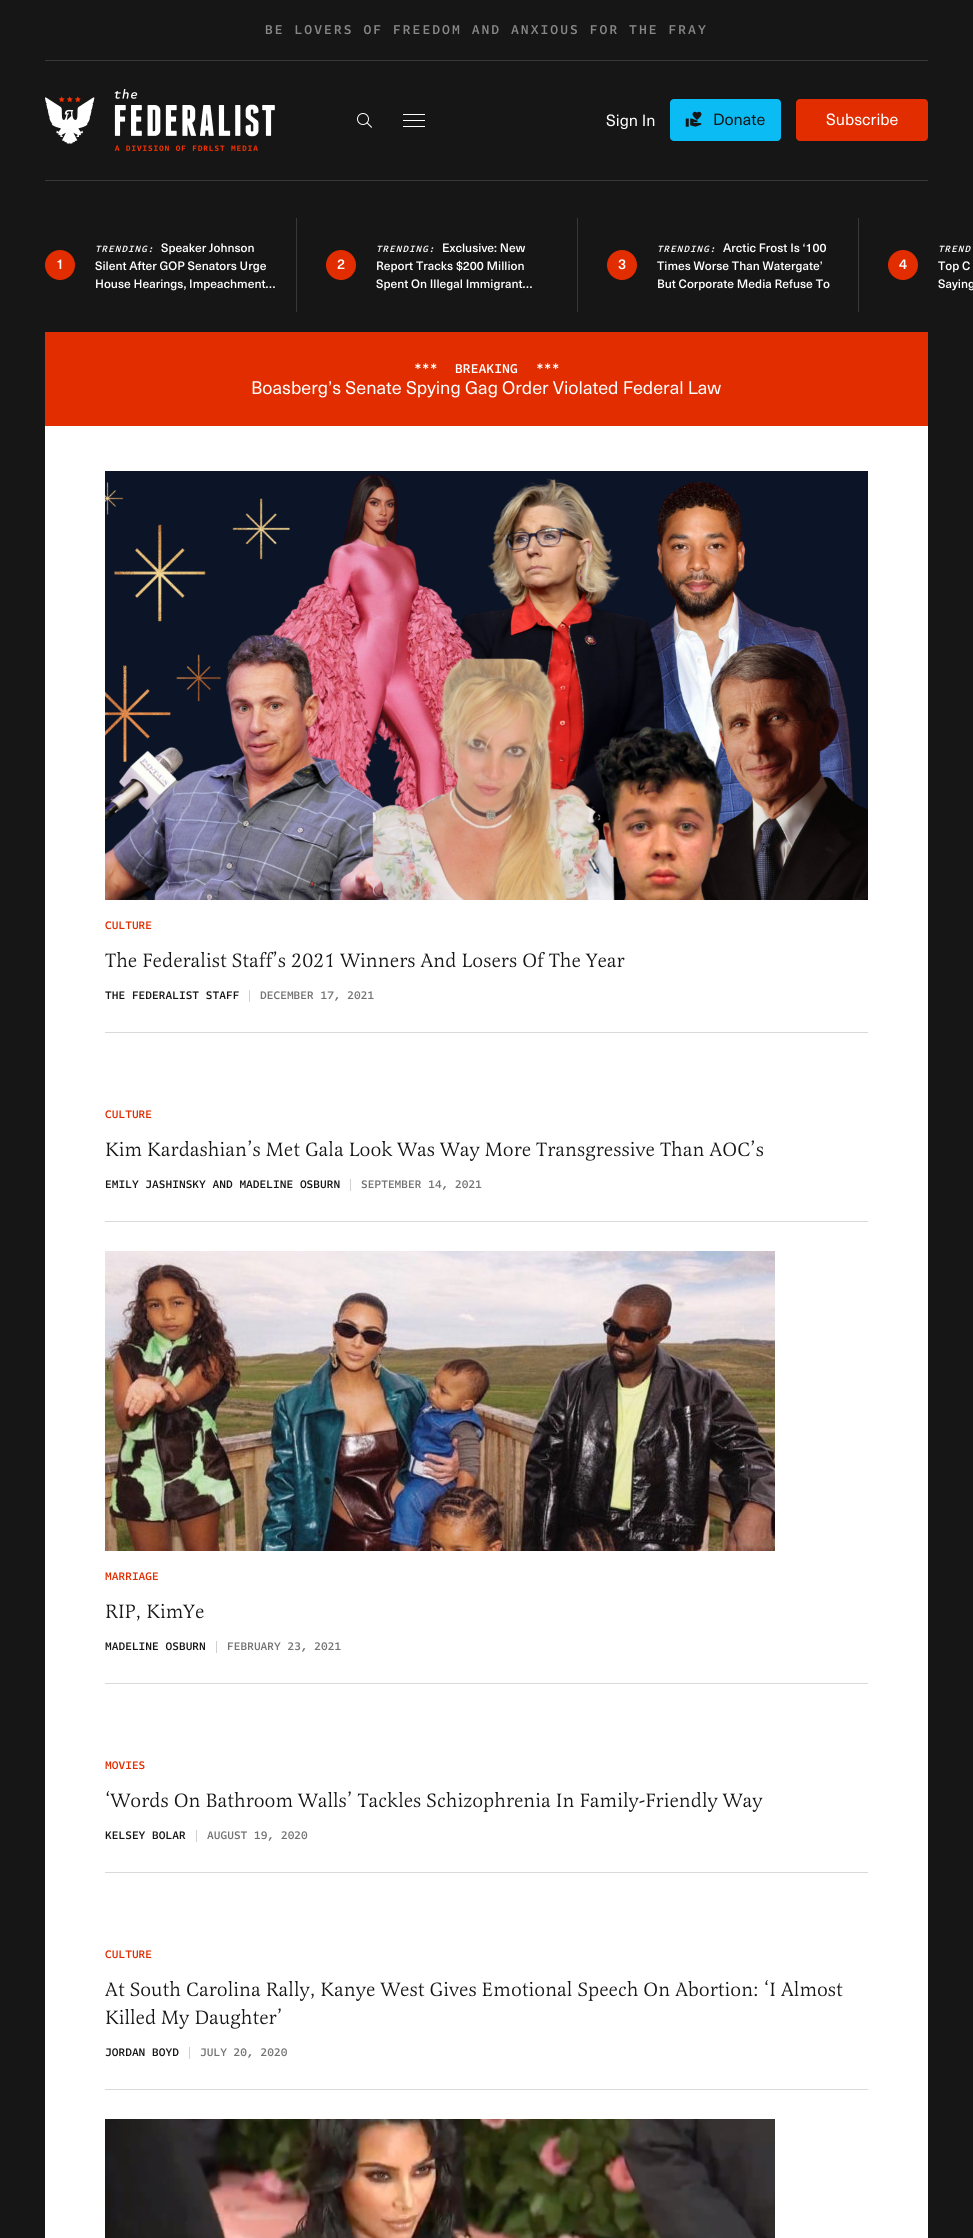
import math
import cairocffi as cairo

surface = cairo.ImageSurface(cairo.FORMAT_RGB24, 973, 2238)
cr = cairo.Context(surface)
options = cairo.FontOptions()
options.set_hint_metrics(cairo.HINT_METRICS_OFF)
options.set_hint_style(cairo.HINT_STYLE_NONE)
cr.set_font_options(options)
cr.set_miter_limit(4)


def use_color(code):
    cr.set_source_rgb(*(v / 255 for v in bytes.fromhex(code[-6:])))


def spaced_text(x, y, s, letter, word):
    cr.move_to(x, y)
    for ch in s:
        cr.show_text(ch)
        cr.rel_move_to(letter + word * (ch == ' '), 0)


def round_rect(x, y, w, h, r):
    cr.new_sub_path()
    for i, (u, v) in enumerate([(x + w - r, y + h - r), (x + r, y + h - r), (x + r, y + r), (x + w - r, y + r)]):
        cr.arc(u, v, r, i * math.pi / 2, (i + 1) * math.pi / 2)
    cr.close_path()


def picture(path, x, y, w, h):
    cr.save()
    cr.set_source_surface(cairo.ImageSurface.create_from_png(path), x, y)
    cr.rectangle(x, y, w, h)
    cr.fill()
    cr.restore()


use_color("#161616")
cr.paint()
use_color("#393939")
cr.rectangle(45, 60, 883, 1)
cr.fill()
cr.select_font_face("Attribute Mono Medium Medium")
cr.set_font_size(14)
use_color("#888888")
spaced_text(265, 34, "BE LOVERS OF FREEDOM AND ANXIOUS FOR THE FRAY", 2, 0)
use_color("#393939")
cr.rectangle(45, 180, 883, 1)
cr.fill()
picture("img1.png", 45, 89, 230, 62)
cr.arc(363, 119, 5.5, 0, 2 * math.pi)
use_color("#ffffff")
cr.set_line_width(1)
cr.stroke()
cr.new_path()
cr.move_to(367, 122)
cr.line_to(372, 127)
cr.line_to(371.5, 128)
cr.line_to(366.5, 123)
cr.close_path()
cr.fill()
cr.rectangle(403, 114, 22, 1)
cr.fill()
cr.rectangle(403, 120, 22, 1)
cr.fill()
cr.rectangle(403, 126, 22, 1)
cr.fill()
cr.select_font_face("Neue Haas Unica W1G")
cr.set_font_size(16)
cr.move_to(606, 126)
cr.show_text("Sign In")
use_color("#0bbcf4")
round_rect(670, 99, 111, 42, 4)
cr.fill()
picture("img2.png", 685, 111, 17, 16)
use_color("#161616")
cr.move_to(713, 125)
cr.show_text("Donate")
use_color("#e12d00")
round_rect(796, 99, 132, 42, 4)
cr.fill()
use_color("#ffffff")
cr.move_to(826, 125)
cr.show_text("Subscribe")
use_color("#393939")
cr.rectangle(296, 218, 1, 94)
cr.fill()
use_color("#e12d00")
cr.arc(60, 265, 15, 0, 2 * math.pi)
cr.fill()
cr.select_font_face("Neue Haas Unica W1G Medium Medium")
cr.set_font_size(14)
use_color("#ffffff")
cr.move_to(56, 269)
cr.show_text("1")
cr.select_font_face("Attribute Mono Medium Medium", cairo.FONT_SLANT_ITALIC)
cr.set_font_size(10)
spaced_text(95, 252, "TRENDING:", 1, 0)
cr.select_font_face("Neue Haas Unica W1G Medium Medium")
cr.set_font_size(12)
cr.move_to(161, 252)
cr.show_text("Speaker Johnson")
cr.move_to(95, 270)
cr.show_text("Silent After GOP Senators Urge")
cr.move_to(95, 288)
cr.show_text("House Hearings, Impeachment…")
use_color("#393939")
cr.rectangle(577, 218, 1, 94)
cr.fill()
use_color("#e12d00")
cr.arc(341, 265, 15, 0, 2 * math.pi)
cr.fill()
cr.set_font_size(14)
use_color("#ffffff")
cr.move_to(337, 269)
cr.show_text("2")
cr.select_font_face("Attribute Mono Medium Medium", cairo.FONT_SLANT_ITALIC)
cr.set_font_size(10)
spaced_text(376, 252, "TRENDING:", 1, 0)
cr.select_font_face("Neue Haas Unica W1G Medium Medium")
cr.set_font_size(12)
cr.move_to(442, 252)
cr.show_text("Exclusive: New")
cr.move_to(376, 270)
cr.show_text("Report Tracks $200 Million")
cr.move_to(376, 288)
cr.show_text("Spent On Illegal Immigrant…")
use_color("#393939")
cr.rectangle(858, 218, 1, 94)
cr.fill()
use_color("#e12d00")
cr.arc(622, 265, 15, 0, 2 * math.pi)
cr.fill()
cr.set_font_size(14)
use_color("#ffffff")
cr.move_to(618, 269)
cr.show_text("3")
cr.select_font_face("Attribute Mono Medium Medium", cairo.FONT_SLANT_ITALIC)
cr.set_font_size(10)
spaced_text(657, 252, "TRENDING:", 1, 0)
cr.select_font_face("Neue Haas Unica W1G Medium Medium")
cr.set_font_size(12)
cr.move_to(723, 252)
cr.show_text("Arctic Frost Is ‘100")
cr.move_to(657, 270)
cr.show_text("Times Worse Than Watergate’")
cr.move_to(657, 288)
cr.show_text("But Corporate Media Refuse To")
use_color("#e12d00")
cr.new_path()
cr.arc(903, 265, 15, 0, 2 * math.pi)
cr.fill()
cr.set_font_size(14)
use_color("#ffffff")
cr.move_to(899, 269)
cr.show_text("4")
cr.select_font_face("Attribute Mono Medium Medium", cairo.FONT_SLANT_ITALIC)
cr.set_font_size(10)
spaced_text(938, 252, "TREND", 1, 0)
cr.select_font_face("Neue Haas Unica W1G Medium Medium")
cr.set_font_size(12)
cr.move_to(938, 270)
cr.show_text("Top C")
cr.move_to(938, 288)
cr.show_text("Saying")
use_color("#e12d00")
cr.rectangle(45, 332, 883, 94)
cr.fill()
cr.select_font_face("Attribute Mono Medium Medium")
cr.set_font_size(14)
use_color("#ffffff")
cr.move_to(414, 373)
cr.show_text("***")
cr.move_to(455, 373)
cr.show_text("BREAKING")
cr.move_to(536, 373)
cr.show_text("***")
cr.select_font_face("Neue Haas Unica W1G")
cr.set_font_size(18)
cr.move_to(251, 394)
cr.show_text("Boasberg’s Senate Spying Gag Order Violated Federal Law")
cr.rectangle(45, 426, 883, 1812)
cr.fill()
use_color("#d9d9d9")
cr.rectangle(105, 1032, 763, 1)
cr.fill()
picture("img3.png", 105, 471, 763, 429)
cr.select_font_face("Attribute Mono Medium Medium")
cr.set_font_size(12)
use_color("#e12d00")
cr.move_to(105, 929)
cr.show_text("CULTURE")
cr.select_font_face("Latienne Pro")
cr.set_font_size(20)
use_color("#161616")
cr.move_to(105, 967)
cr.show_text("The Federalist Staff’s 2021 Winners And Losers Of The Year")
cr.select_font_face("Attribute Mono Medium Medium")
cr.set_font_size(12)
cr.move_to(105, 999)
cr.show_text("THE FEDERALIST STAFF")
use_color("#d0d0d0")
cr.rectangle(249, 990, 1, 12)
cr.fill()
use_color("#737373")
cr.move_to(260, 999)
cr.show_text("DECEMBER 17, 2021")
use_color("#d9d9d9")
cr.rectangle(105, 1221, 763, 1)
cr.fill()
use_color("#e12d00")
cr.move_to(105, 1118)
cr.show_text("CULTURE")
cr.select_font_face("Latienne Pro")
cr.set_font_size(20)
use_color("#161616")
cr.move_to(105, 1156)
cr.show_text("Kim Kardashian’s Met Gala Look Was Way More Transgressive Than AOC’s")
cr.select_font_face("Attribute Mono Medium Medium")
cr.set_font_size(12)
cr.move_to(105, 1188)
cr.show_text("EMILY JASHINSKY AND MADELINE OSBURN")
use_color("#d0d0d0")
cr.rectangle(350, 1179, 1, 12)
cr.fill()
use_color("#737373")
cr.move_to(361, 1188)
cr.show_text("SEPTEMBER 14, 2021")
use_color("#d9d9d9")
cr.rectangle(105, 1683, 763, 1)
cr.fill()
picture("img4.png", 105, 1251, 670, 300)
use_color("#e12d00")
cr.move_to(105, 1580)
cr.show_text("MARRIAGE")
cr.select_font_face("Latienne Pro")
cr.set_font_size(20)
use_color("#161616")
cr.move_to(105, 1618)
cr.show_text("RIP, KimYe")
cr.select_font_face("Attribute Mono Medium Medium")
cr.set_font_size(12)
cr.move_to(105, 1650)
cr.show_text("MADELINE OSBURN")
use_color("#d0d0d0")
cr.rectangle(216, 1641, 1, 12)
cr.fill()
use_color("#737373")
cr.move_to(227, 1650)
cr.show_text("FEBRUARY 23, 2021")
use_color("#d9d9d9")
cr.rectangle(105, 1872, 763, 1)
cr.fill()
use_color("#e12d00")
cr.move_to(105, 1769)
cr.show_text("MOVIES")
cr.select_font_face("Latienne Pro")
cr.set_font_size(20)
use_color("#161616")
cr.move_to(105, 1807)
cr.show_text("‘Words On Bathroom Walls’ Tackles Schizophrenia In Family-Friendly Way")
cr.select_font_face("Attribute Mono Medium Medium")
cr.set_font_size(12)
cr.move_to(105, 1839)
cr.show_text("KELSEY BOLAR")
use_color("#d0d0d0")
cr.rectangle(196, 1830, 1, 12)
cr.fill()
use_color("#737373")
cr.move_to(207, 1839)
cr.show_text("AUGUST 19, 2020")
use_color("#d9d9d9")
cr.rectangle(105, 2089, 763, 1)
cr.fill()
use_color("#e12d00")
cr.move_to(105, 1958)
cr.show_text("CULTURE")
cr.select_font_face("Latienne Pro")
cr.set_font_size(20)
use_color("#161616")
cr.move_to(105, 1996)
cr.show_text("At South Carolina Rally, Kanye West Gives Emotional Speech On Abortion: ‘I Almost")
cr.move_to(105, 2024)
cr.show_text("Killed My Daughter’")
cr.select_font_face("Attribute Mono Medium Medium")
cr.set_font_size(12)
cr.move_to(105, 2056)
cr.show_text("JORDAN BOYD")
use_color("#d0d0d0")
cr.rectangle(189, 2047, 1, 12)
cr.fill()
use_color("#737373")
cr.move_to(200, 2056)
cr.show_text("JULY 20, 2020")
picture("img5.png", 105, 2119, 670, 119)
surface.write_to_png("result.png")
